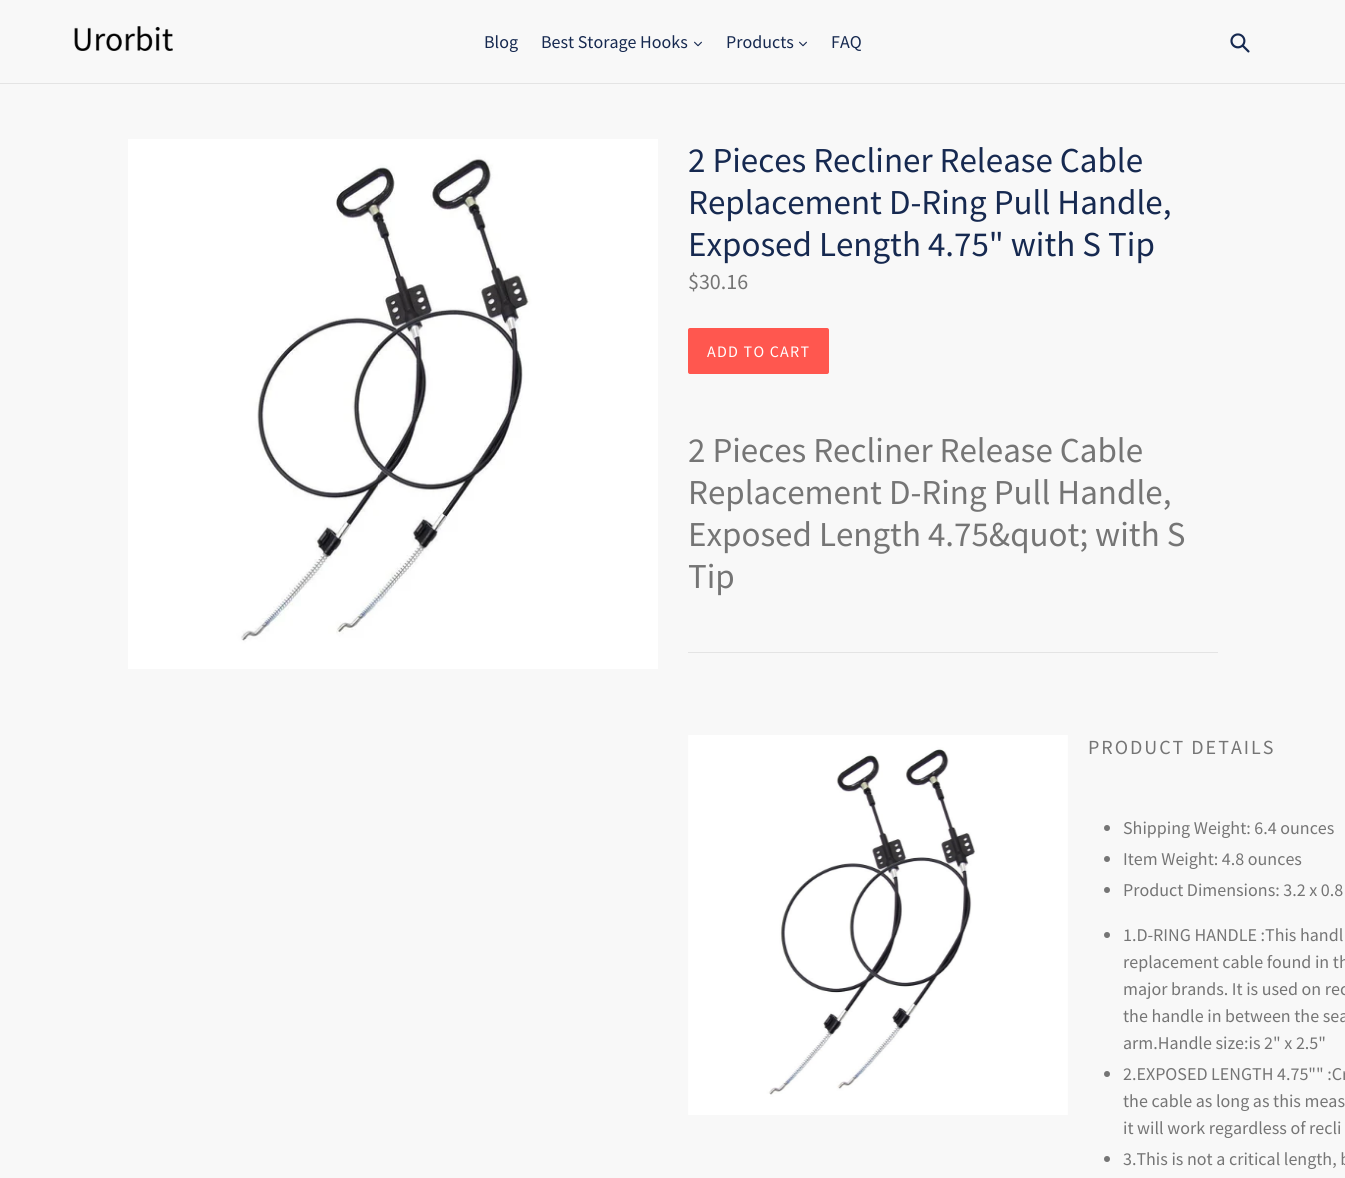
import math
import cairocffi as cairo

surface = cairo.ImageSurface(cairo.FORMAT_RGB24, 1345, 1178)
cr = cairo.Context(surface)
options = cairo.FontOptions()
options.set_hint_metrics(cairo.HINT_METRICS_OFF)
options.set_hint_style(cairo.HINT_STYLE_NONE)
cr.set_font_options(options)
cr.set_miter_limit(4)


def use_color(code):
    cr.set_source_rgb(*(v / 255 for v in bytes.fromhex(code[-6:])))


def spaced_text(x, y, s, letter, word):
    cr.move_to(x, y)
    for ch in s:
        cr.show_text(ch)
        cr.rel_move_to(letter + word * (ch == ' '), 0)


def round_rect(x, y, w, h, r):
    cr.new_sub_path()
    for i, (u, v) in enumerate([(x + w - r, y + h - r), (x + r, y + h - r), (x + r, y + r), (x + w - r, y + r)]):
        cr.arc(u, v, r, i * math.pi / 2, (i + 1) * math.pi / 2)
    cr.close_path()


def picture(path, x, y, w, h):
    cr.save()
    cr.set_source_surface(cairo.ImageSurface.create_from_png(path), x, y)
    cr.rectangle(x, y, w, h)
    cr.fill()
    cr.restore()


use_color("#f8f8f8")
cr.paint()
use_color("#e4e4e4")
cr.rectangle(0, 83, 1345, 1)
cr.fill()
picture("img1.png", 74, 26, 99, 25)
cr.select_font_face("Source Sans Pro")
cr.set_font_size(18)
use_color("#162950")
cr.move_to(484, 48)
cr.show_text("Blog")
cr.move_to(541, 48)
cr.show_text("Best Storage Hooks")
picture("img2.png", 694, 41, 8, 6)
cr.move_to(726, 48)
cr.show_text("Products")
picture("img2.png", 799, 41, 8, 6)
cr.move_to(831, 48)
cr.show_text("FAQ")
picture("img3.png", 1230, 33, 20, 20)
picture("img4.png", 128, 139, 530, 530)
cr.set_font_size(35)
cr.move_to(688, 172)
cr.show_text("2 Pieces Recliner Release Cable")
cr.move_to(688, 214)
cr.show_text("Replacement D-Ring Pull Handle,")
cr.move_to(688, 256)
cr.show_text("Exposed Length 4.75\" with S Tip")
cr.set_font_size(22)
use_color("#757575")
cr.move_to(688, 289)
cr.show_text("$30.16")
use_color("#ff574f")
round_rect(688, 328, 141, 46, 2)
cr.fill()
cr.set_font_size(16)
use_color("#ffffff")
spaced_text(707, 357, "ADD TO CART", 1.25, 0)
cr.set_font_size(35)
use_color("#757575")
cr.move_to(688, 462)
cr.show_text("2 Pieces Recliner Release Cable")
cr.move_to(688, 504)
cr.show_text("Replacement D-Ring Pull Handle,")
cr.move_to(688, 546)
cr.show_text("Exposed Length 4.75&quot; with S")
cr.move_to(688, 588)
cr.show_text("Tip")
use_color("#e4e4e4")
cr.rectangle(688, 652, 530, 1)
cr.fill()
picture("img5.png", 688, 735, 380, 380)
cr.set_font_size(20)
use_color("#757575")
spaced_text(1088, 754, "PRODUCT DETAILS", 2, 0)
cr.new_path()
cr.arc(1107, 828, 3, 0, 2 * math.pi)
cr.fill()
cr.set_font_size(18)
cr.move_to(1123, 834)
cr.show_text("Shipping Weight: 6.4 ounces")
cr.new_path()
cr.arc(1107, 859, 3, 0, 2 * math.pi)
cr.fill()
cr.move_to(1123, 865)
cr.show_text("Item Weight: 4.8 ounces")
cr.new_path()
cr.arc(1107, 890, 3, 0, 2 * math.pi)
cr.fill()
cr.move_to(1123, 896)
cr.show_text("Product Dimensions: 3.2 x 0.8")
cr.new_path()
cr.arc(1107, 935, 3, 0, 2 * math.pi)
cr.fill()
cr.move_to(1123, 941)
cr.show_text("1.D-RING HANDLE :This handl")
cr.move_to(1123, 968)
cr.show_text("replacement cable found in th")
cr.move_to(1123, 995)
cr.show_text("major brands. It is used on rec")
cr.move_to(1123, 1022)
cr.show_text("the handle in between the sea")
cr.move_to(1123, 1049)
cr.show_text("arm.Handle size:is 2\" x 2.5\"")
cr.new_path()
cr.arc(1107, 1074, 3, 0, 2 * math.pi)
cr.fill()
cr.move_to(1123, 1080)
cr.show_text("2.EXPOSED LENGTH 4.75\"\" :Cr")
cr.move_to(1123, 1107)
cr.show_text("the cable as long as this meas")
cr.move_to(1123, 1134)
cr.show_text("it will work regardless of recli")
cr.new_path()
cr.arc(1107, 1159, 3, 0, 2 * math.pi)
cr.fill()
cr.move_to(1123, 1165)
cr.show_text("3.This is not a critical length, b")
surface.write_to_png("result.png")
